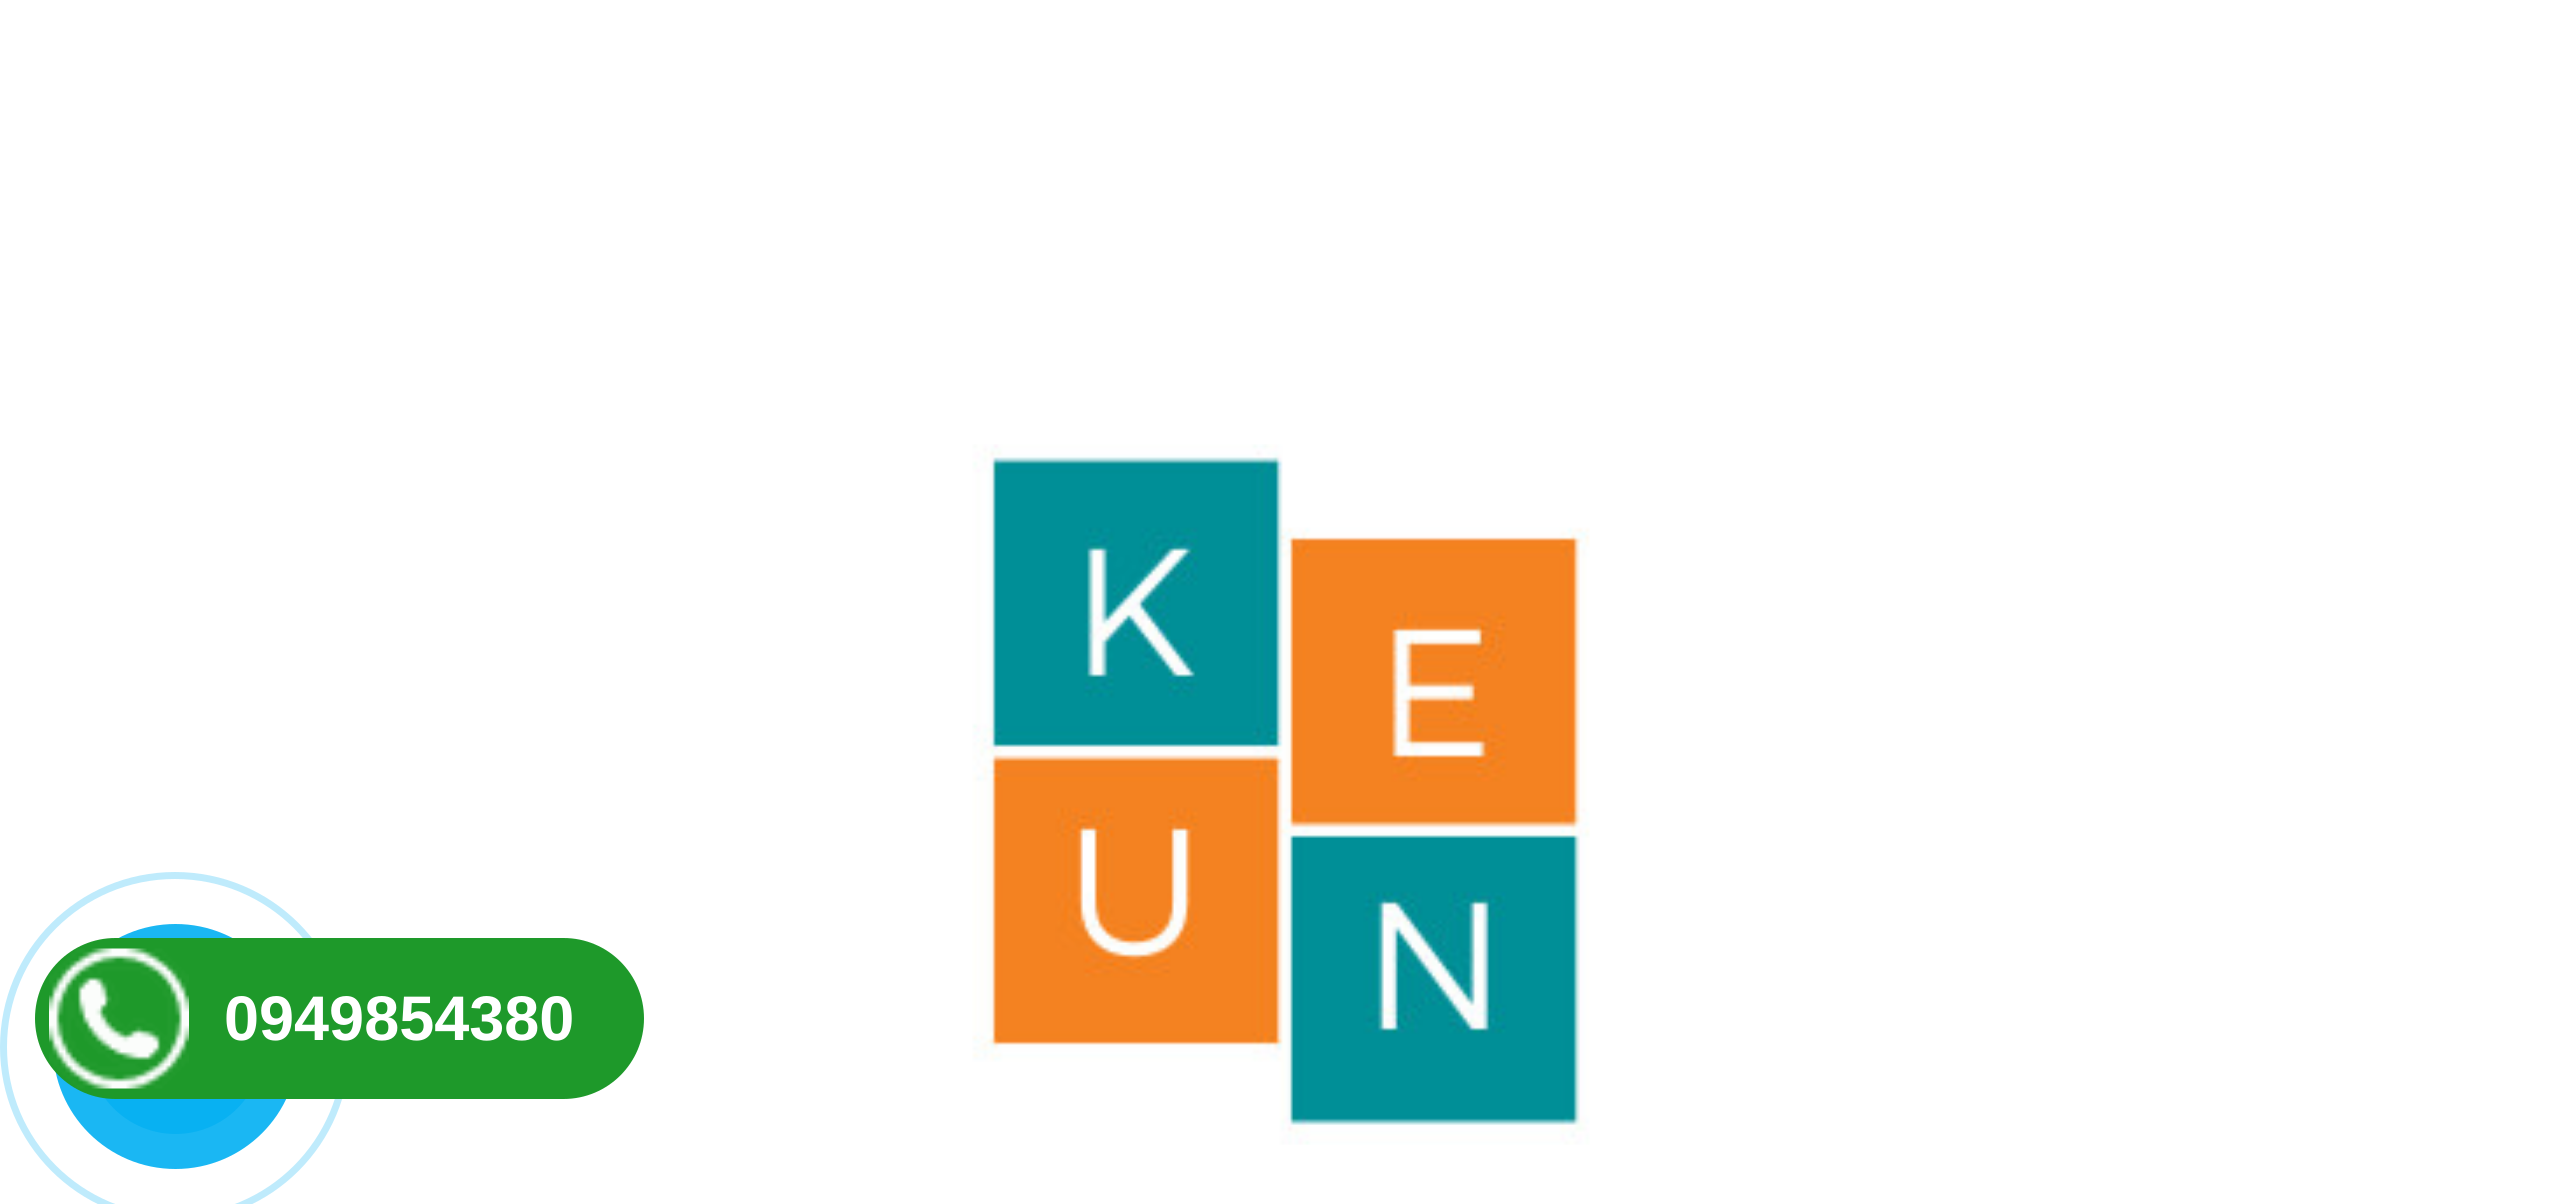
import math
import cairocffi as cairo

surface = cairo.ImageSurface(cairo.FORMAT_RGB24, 2573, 1204)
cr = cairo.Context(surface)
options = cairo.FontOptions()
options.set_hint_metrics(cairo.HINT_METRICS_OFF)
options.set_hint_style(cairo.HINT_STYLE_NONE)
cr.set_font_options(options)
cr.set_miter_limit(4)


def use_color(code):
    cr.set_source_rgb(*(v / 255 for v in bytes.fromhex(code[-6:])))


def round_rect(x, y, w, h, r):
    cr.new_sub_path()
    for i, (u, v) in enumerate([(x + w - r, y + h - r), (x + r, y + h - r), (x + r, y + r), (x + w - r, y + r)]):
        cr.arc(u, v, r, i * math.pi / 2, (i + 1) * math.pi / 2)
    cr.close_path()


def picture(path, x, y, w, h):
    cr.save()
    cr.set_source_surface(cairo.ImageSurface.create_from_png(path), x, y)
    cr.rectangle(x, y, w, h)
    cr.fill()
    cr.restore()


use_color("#ffffff")
cr.paint()
cr.arc(175, 1047, 171.5, 0, 2 * math.pi)
use_color("#bfebfc")
cr.set_line_width(7)
cr.stroke()
use_color("#1ab7f3")
cr.arc(175.5, 1046.5, 122.5, 0, 2 * math.pi)
cr.fill()
use_color("#08b1f2")
cr.arc(175.5, 1046.5, 87.5, 0, 2 * math.pi)
cr.fill()
picture("img1.png", 972, 444, 618, 701)
use_color("#1e992a")
round_rect(35, 938, 609, 161, 80.5)
cr.fill()
picture("img2.png", 49, 948, 140, 141)
cr.select_font_face("Liberation Sans", cairo.FONT_SLANT_NORMAL, cairo.FONT_WEIGHT_BOLD)
cr.set_font_size(63)
use_color("#ffffff")
cr.move_to(224, 1040)
cr.show_text("0949854380")
surface.write_to_png("result.png")
